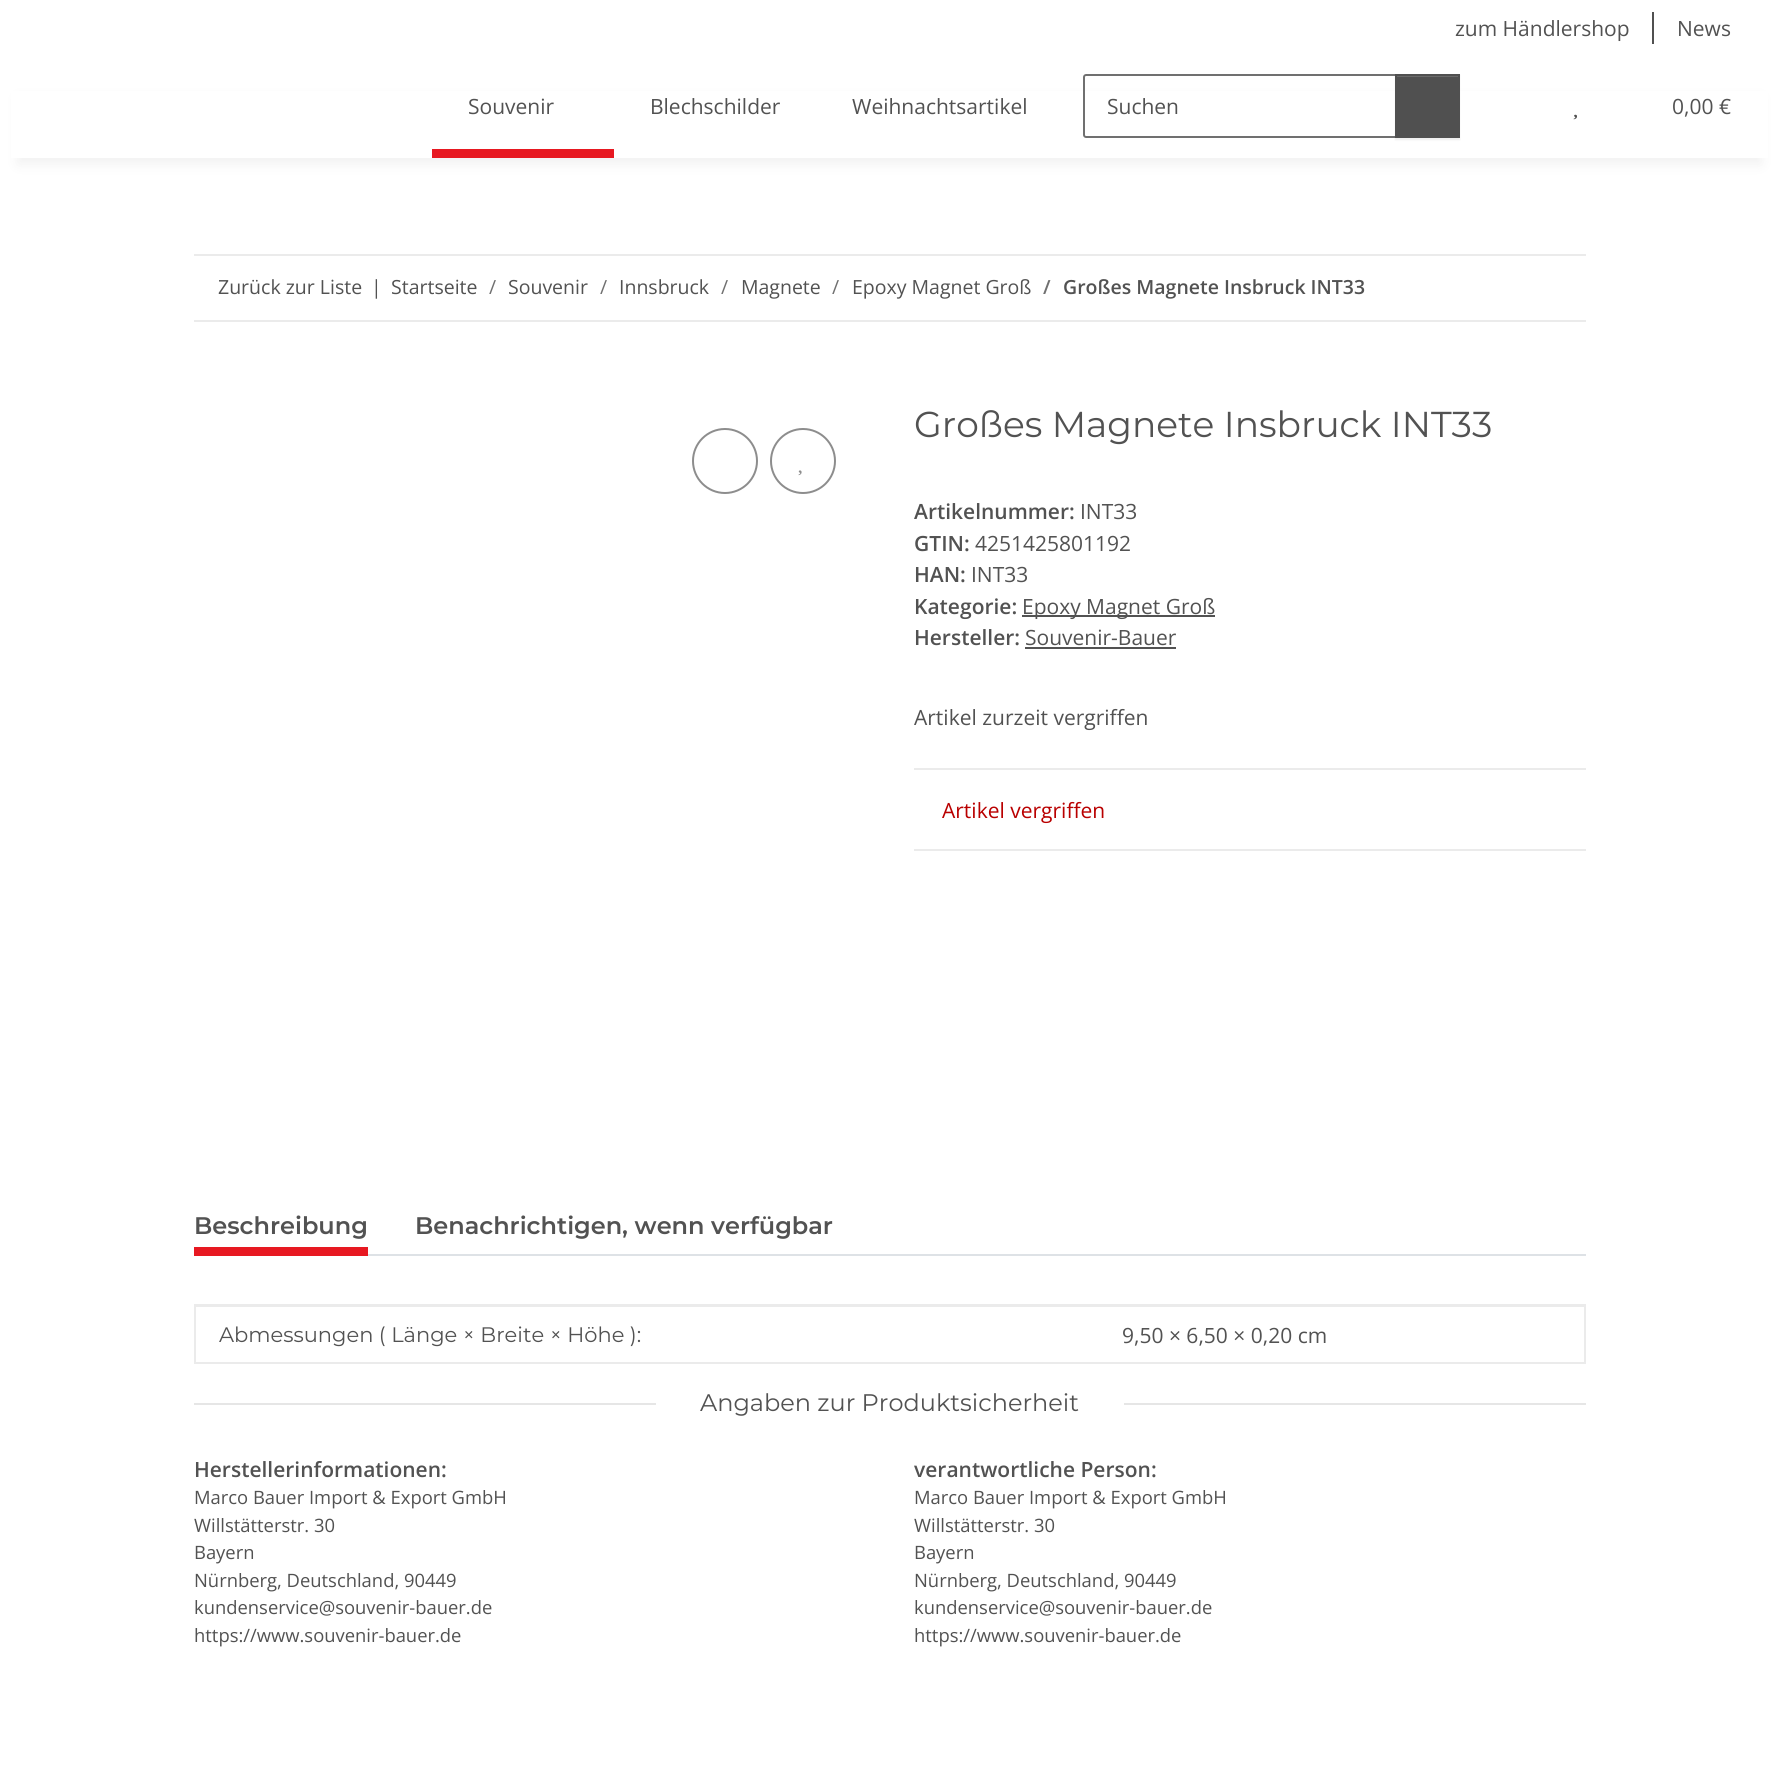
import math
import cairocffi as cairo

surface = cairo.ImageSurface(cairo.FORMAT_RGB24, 1778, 1786)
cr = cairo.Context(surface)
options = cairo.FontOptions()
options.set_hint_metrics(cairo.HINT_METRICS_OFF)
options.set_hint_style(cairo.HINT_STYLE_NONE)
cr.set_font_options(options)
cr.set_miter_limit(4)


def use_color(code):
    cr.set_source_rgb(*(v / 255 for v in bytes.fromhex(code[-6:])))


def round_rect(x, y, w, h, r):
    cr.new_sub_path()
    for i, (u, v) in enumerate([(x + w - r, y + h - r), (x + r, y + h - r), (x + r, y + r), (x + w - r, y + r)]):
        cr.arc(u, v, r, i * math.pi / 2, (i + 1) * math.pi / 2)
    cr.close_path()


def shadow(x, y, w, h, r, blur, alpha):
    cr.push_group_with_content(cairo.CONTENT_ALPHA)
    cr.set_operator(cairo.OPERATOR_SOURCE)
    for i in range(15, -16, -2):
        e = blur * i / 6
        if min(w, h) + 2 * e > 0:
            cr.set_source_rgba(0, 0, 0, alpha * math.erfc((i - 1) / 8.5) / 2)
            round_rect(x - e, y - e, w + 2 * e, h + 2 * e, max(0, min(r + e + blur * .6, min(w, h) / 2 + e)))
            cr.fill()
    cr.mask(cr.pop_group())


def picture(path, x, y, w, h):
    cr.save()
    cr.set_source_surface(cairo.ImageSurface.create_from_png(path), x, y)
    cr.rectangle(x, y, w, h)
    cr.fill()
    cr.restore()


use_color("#ffffff")
cr.paint()
cr.select_font_face("Open Sans")
cr.set_font_size(21)
use_color("#525252")
cr.move_to(1455, 36)
cr.show_text("zum Händlershop")
use_color("#505050")
cr.rectangle(1652, 12, 2, 32)
cr.fill()
use_color("#525252")
cr.move_to(1677, 36)
cr.show_text("News")
use_color("#000000")
shadow(18, 98, 1743, 66, 0, 7, 0.06)
use_color("#ffffff")
cr.rectangle(11, 91, 1757, 67)
cr.fill()
use_color("#525252")
cr.move_to(468, 114)
cr.show_text("Souvenir")
use_color("#e71821")
cr.rectangle(432, 149, 182, 9)
cr.fill()
use_color("#525252")
cr.move_to(650, 114)
cr.show_text("Blechschilder")
cr.move_to(852, 114)
cr.show_text("Weihnachtsartikel")
cr.new_path()
cr.move_to(1086, 75)
cr.line_to(1396, 75)
cr.line_to(1396, 137)
cr.line_to(1086, 137)
cr.curve_to(1085, 137, 1084, 136, 1084, 135)
cr.line_to(1084, 77)
cr.curve_to(1084, 76, 1085, 75, 1086, 75)
cr.close_path()
use_color("#707070")
cr.stroke()
use_color("#525252")
cr.move_to(1107, 114)
cr.show_text("Suchen")
use_color("#000000")
shadow(1395, 75, 65, 65, 0, 1, 0.07)
use_color("#505050")
cr.rectangle(1397, 77, 61, 59)
cr.fill()
use_color("#6a6a6a")
cr.rectangle(1397, 76, 61, 1)
cr.fill()
cr.rectangle(1396, 75, 63, 62)
use_color("#505050")
cr.stroke()
picture("img1.png", 1573, 114, 4, 6)
use_color("#525252")
cr.move_to(1672, 114)
cr.show_text("0,00 €")
use_color("#ebebeb")
cr.rectangle(194, 254, 1392, 2)
cr.fill()
cr.rectangle(194, 320, 1392, 2)
cr.fill()
cr.set_font_size(19.5)
use_color("#525252")
cr.move_to(218, 294)
cr.show_text("Zurück zur Liste")
cr.move_to(371, 294)
cr.show_text("|")
cr.move_to(391, 294)
cr.show_text("Startseite")
use_color("#707070")
cr.move_to(489, 294)
cr.show_text("/")
use_color("#525252")
cr.move_to(508, 294)
cr.show_text("Souvenir")
use_color("#707070")
cr.move_to(600, 294)
cr.show_text("/")
use_color("#525252")
cr.move_to(619, 294)
cr.show_text("Innsbruck")
use_color("#707070")
cr.move_to(721, 294)
cr.show_text("/")
use_color("#525252")
cr.move_to(741, 294)
cr.show_text("Magnete")
use_color("#707070")
cr.move_to(832, 294)
cr.show_text("/")
use_color("#525252")
cr.move_to(852, 294)
cr.show_text("Epoxy Magnet Groß")
cr.select_font_face("Open Sans SemiBold")
use_color("#707070")
cr.move_to(1043, 294)
cr.show_text("/")
use_color("#525252")
cr.move_to(1063, 294)
cr.show_text("Großes Magnete Insbruck INT33")
cr.new_path()
cr.arc(725, 461, 32, 0, 2 * math.pi)
use_color("#8d8d8d")
cr.stroke()
cr.arc(803, 461, 32, 0, 2 * math.pi)
cr.stroke()
picture("img2.png", 798, 470, 4, 6)
cr.select_font_face("Montserrat")
cr.set_font_size(36)
use_color("#525252")
cr.move_to(914, 437)
cr.show_text("Großes Magnete Insbruck INT33")
cr.select_font_face("Open Sans SemiBold")
cr.set_font_size(21)
cr.move_to(914, 519)
cr.show_text("Artikelnummer:")
cr.select_font_face("Open Sans")
cr.move_to(1080, 519)
cr.show_text("INT33")
cr.select_font_face("Open Sans SemiBold")
cr.move_to(914, 551)
cr.show_text("GTIN:")
cr.select_font_face("Open Sans")
cr.move_to(975, 551)
cr.show_text("4251425801192")
cr.select_font_face("Open Sans SemiBold")
cr.move_to(914, 582)
cr.show_text("HAN:")
cr.select_font_face("Open Sans")
cr.move_to(971, 582)
cr.show_text("INT33")
cr.select_font_face("Open Sans SemiBold")
cr.move_to(914, 614)
cr.show_text("Kategorie:")
cr.rectangle(1022, 615, 193, 2)
cr.fill()
cr.select_font_face("Open Sans")
cr.move_to(1022, 614)
cr.show_text("Epoxy Magnet Groß")
cr.select_font_face("Open Sans SemiBold")
cr.move_to(914, 645)
cr.show_text("Hersteller:")
cr.select_font_face("Open Sans")
cr.move_to(1025, 645)
cr.show_text("Souvenir-Bauer")
cr.rectangle(1025, 647, 151, 2)
cr.fill()
cr.move_to(914, 725)
cr.show_text("Artikel zurzeit vergriffen")
use_color("#ebebeb")
cr.rectangle(914, 768, 672, 2)
cr.fill()
cr.rectangle(914, 849, 672, 2)
cr.fill()
use_color("#b90000")
cr.move_to(942, 818)
cr.show_text("Artikel vergriffen")
use_color("#dee2e6")
cr.rectangle(368, 1254, 1218, 2)
cr.fill()
cr.select_font_face("Montserrat SemiBold")
cr.set_font_size(24)
use_color("#525252")
cr.move_to(194, 1234)
cr.show_text("Beschreibung")
use_color("#e71821")
cr.rectangle(194, 1247, 174, 9)
cr.fill()
use_color("#525252")
cr.move_to(415, 1234)
cr.show_text("Benachrichtigen, wenn verfügbar")
use_color("#ebebeb")
cr.rectangle(194, 1306, 1392, 1)
cr.fill()
cr.rectangle(1584, 1305, 2, 59)
cr.fill()
cr.rectangle(194, 1362, 1392, 2)
cr.fill()
cr.rectangle(194, 1305, 2, 59)
cr.fill()
cr.rectangle(194, 1304, 1392, 2)
cr.fill()
cr.select_font_face("Montserrat")
cr.set_font_size(21)
use_color("#525252")
cr.move_to(219, 1342)
cr.show_text("Abmessungen ( Länge × Breite × Höhe ):")
cr.select_font_face("Open Sans")
cr.move_to(1122, 1343)
cr.show_text("9,50 × 6,50 × 0,20 cm")
use_color("#e6e6e6")
cr.rectangle(194, 1403, 462, 2)
cr.fill()
cr.select_font_face("Montserrat")
cr.set_font_size(24)
use_color("#525252")
cr.move_to(700, 1411)
cr.show_text("Angaben zur Produktsicherheit")
use_color("#e6e6e6")
cr.rectangle(1124, 1403, 462, 2)
cr.fill()
cr.select_font_face("Open Sans SemiBold")
cr.set_font_size(21)
use_color("#525252")
cr.move_to(194, 1477)
cr.show_text("Herstellerinformationen:")
cr.select_font_face("Open Sans")
cr.set_font_size(18.4)
cr.move_to(194, 1504)
cr.show_text("Marco Bauer Import & Export GmbH")
cr.move_to(194, 1532)
cr.show_text("Willstätterstr. 30")
cr.move_to(194, 1559)
cr.show_text("Bayern")
cr.move_to(194, 1587)
cr.show_text("Nürnberg, Deutschland, 90449")
cr.move_to(194, 1614)
cr.show_text("kundenservice@souvenir-bauer.de")
cr.move_to(194, 1642)
cr.show_text("https://www.souvenir-bauer.de")
cr.select_font_face("Open Sans SemiBold")
cr.set_font_size(21)
cr.move_to(914, 1477)
cr.show_text("verantwortliche Person:")
cr.select_font_face("Open Sans")
cr.set_font_size(18.4)
cr.move_to(914, 1504)
cr.show_text("Marco Bauer Import & Export GmbH")
cr.move_to(914, 1532)
cr.show_text("Willstätterstr. 30")
cr.move_to(914, 1559)
cr.show_text("Bayern")
cr.move_to(914, 1587)
cr.show_text("Nürnberg, Deutschland, 90449")
cr.move_to(914, 1614)
cr.show_text("kundenservice@souvenir-bauer.de")
cr.move_to(914, 1642)
cr.show_text("https://www.souvenir-bauer.de")
surface.write_to_png("result.png")
